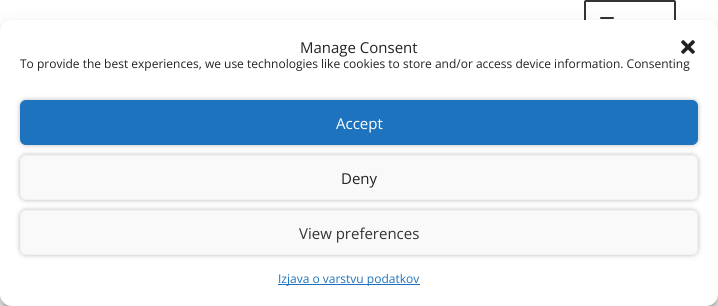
import math
import cairocffi as cairo

surface = cairo.ImageSurface(cairo.FORMAT_RGB24, 718, 306)
cr = cairo.Context(surface)
options = cairo.FontOptions()
options.set_hint_metrics(cairo.HINT_METRICS_OFF)
options.set_hint_style(cairo.HINT_STYLE_NONE)
cr.set_font_options(options)
cr.set_miter_limit(4)


def use_color(code):
    cr.set_source_rgb(*(v / 255 for v in bytes.fromhex(code[-6:])))


def round_rect(x, y, w, h, r):
    cr.new_sub_path()
    for i, (u, v) in enumerate([(x + w - r, y + h - r), (x + r, y + h - r), (x + r, y + r), (x + w - r, y + r)]):
        cr.arc(u, v, r, i * math.pi / 2, (i + 1) * math.pi / 2)
    cr.close_path()


def shadow(x, y, w, h, r, blur, alpha):
    cr.push_group_with_content(cairo.CONTENT_ALPHA)
    cr.set_operator(cairo.OPERATOR_SOURCE)
    for i in range(15, -16, -2):
        e = blur * i / 6
        if min(w, h) + 2 * e > 0:
            cr.set_source_rgba(0, 0, 0, alpha * math.erfc((i - 1) / 8.5) / 2)
            round_rect(x - e, y - e, w + 2 * e, h + 2 * e, max(0, min(r + e + blur * .6, min(w, h) / 2 + e)))
            cr.fill()
    cr.mask(cr.pop_group())


def picture(path, x, y, w, h):
    cr.save()
    cr.set_source_surface(cairo.ImageSurface.create_from_png(path), x, y)
    cr.rectangle(x, y, w, h)
    cr.fill()
    cr.restore()


use_color("#ffffff")
cr.paint()
round_rect(585, 1, 90, 42, 1)
use_color("#333333")
cr.stroke()
round_rect(600, 17, 14, 2, 1)
cr.fill()
use_color("#000000")
shadow(0, 26, 718, 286, 12, 3, 0.23)
shadow(0, 30, 718, 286, 12, 10, 0.19)
use_color("#ffffff")
round_rect(0, 20, 718, 286, 12)
cr.fill()
cr.select_font_face("Open Sans")
cr.set_font_size(15)
use_color("#222222")
cr.move_to(300, 53)
cr.show_text("Manage Consent")
picture("img1.png", 681, 40, 14, 14)
cr.set_font_size(12)
cr.move_to(20, 68)
cr.show_text("To provide the best experiences, we use technologies like cookies to store and/or access device information. Consenting")
use_color("#bbbbbb")
shadow(20, 100, 678, 45, 6, 2.5, 1)
use_color("#1e73be")
round_rect(20.5, 100.5, 677, 44, 5.5)
cr.fill_preserve()
cr.set_line_width(1)
cr.stroke()
cr.set_font_size(15)
use_color("#ffffff")
cr.move_to(336, 129)
cr.show_text("Accept")
use_color("#bbbbbb")
shadow(20, 155, 678, 45, 6, 2.5, 1)
use_color("#f9f9f9")
round_rect(20.5, 155.5, 677, 44, 5.5)
cr.fill_preserve()
use_color("#f2f2f2")
cr.stroke()
use_color("#222222")
cr.move_to(341, 184)
cr.show_text("Deny")
use_color("#bbbbbb")
shadow(20, 210, 678, 45, 6, 2.5, 1)
use_color("#f9f9f9")
round_rect(20.5, 210.5, 677, 44, 5.5)
cr.fill_preserve()
use_color("#f2f2f2")
cr.stroke()
use_color("#333333")
cr.move_to(299, 239)
cr.show_text("View preferences")
use_color("#1e73be")
cr.rectangle(278, 284, 142, 1)
cr.fill()
cr.set_font_size(12)
cr.move_to(278, 283)
cr.show_text("Izjava o varstvu podatkov")
surface.write_to_png("result.png")
